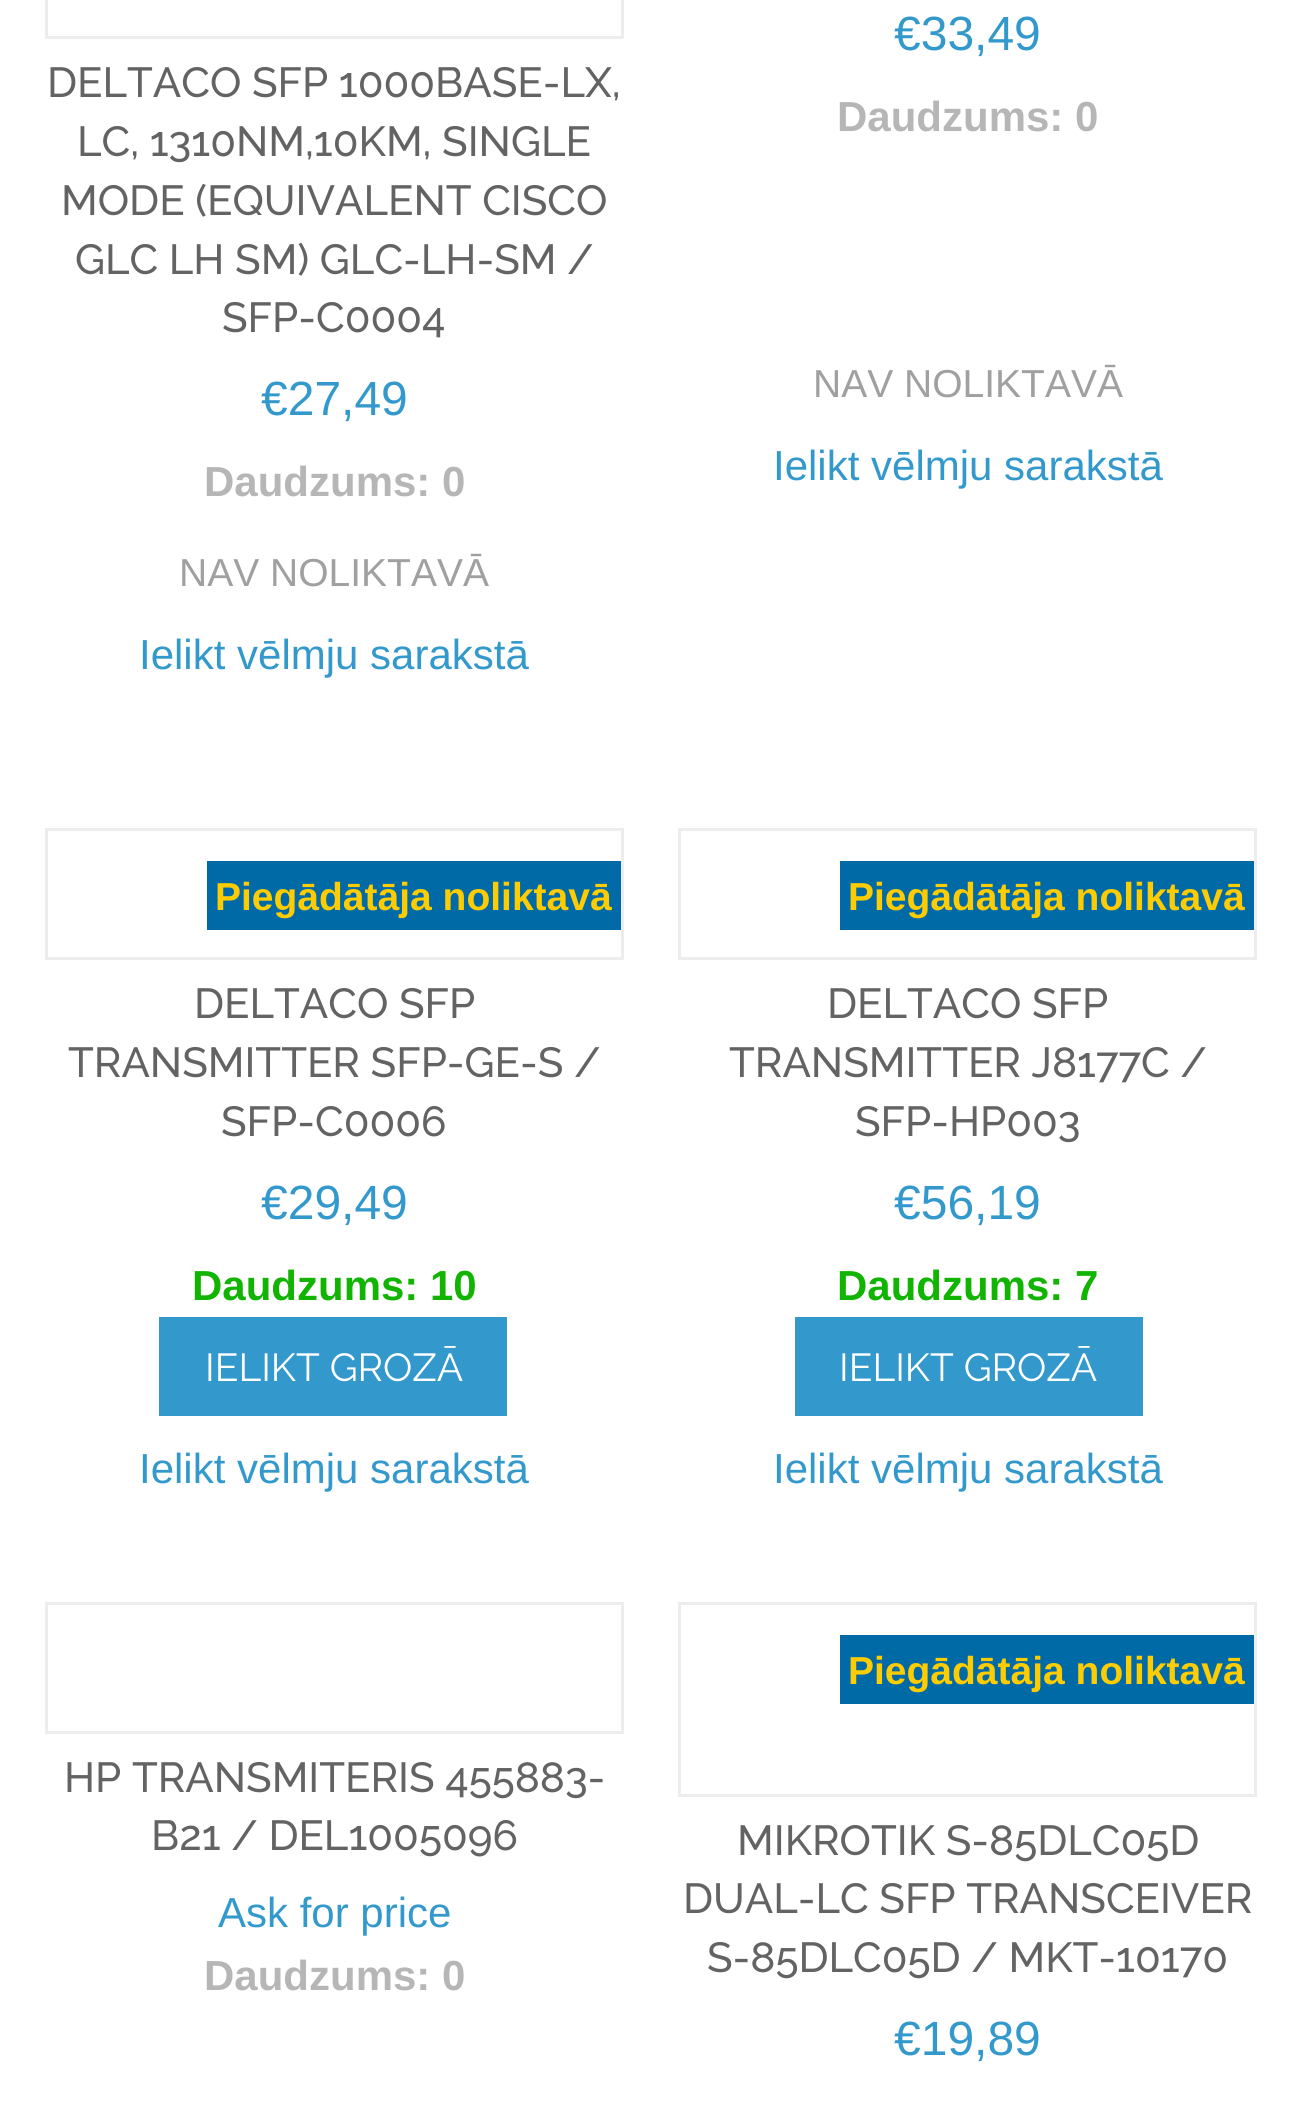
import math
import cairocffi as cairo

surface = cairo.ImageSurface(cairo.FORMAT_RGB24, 1301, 2103)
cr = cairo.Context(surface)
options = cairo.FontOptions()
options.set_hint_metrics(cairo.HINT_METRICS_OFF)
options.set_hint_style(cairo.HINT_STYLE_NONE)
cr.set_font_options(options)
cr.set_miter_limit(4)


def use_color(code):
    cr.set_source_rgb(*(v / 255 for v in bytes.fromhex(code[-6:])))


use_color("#ffffff")
cr.paint()
cr.rectangle(46.5, -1.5, 576, 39)
use_color("#ededed")
cr.set_line_width(3)
cr.stroke()
cr.select_font_face("Raleway Medium")
cr.set_font_size(42)
use_color("#636363")
cr.move_to(47, 97)
cr.show_text("DELTACO SFP 1000BASE-LX,")
cr.move_to(77, 156)
cr.show_text("LC, 1310NM,10KM, SINGLE")
cr.move_to(61, 215)
cr.show_text("MODE (EQUIVALENT CISCO")
cr.move_to(75, 274)
cr.show_text("GLC LH SM) GLC-LH-SM /")
cr.move_to(222, 332)
cr.show_text("SFP-C0004")
cr.select_font_face("Liberation Sans")
cr.set_font_size(48)
use_color("#3399cc")
cr.move_to(261, 415)
cr.show_text("€27,49")
cr.select_font_face("Liberation Sans", cairo.FONT_SLANT_NORMAL, cairo.FONT_WEIGHT_BOLD)
cr.set_font_size(42)
use_color("#b6b6b6")
cr.move_to(204, 496)
cr.show_text("Daudzums: 0")
cr.select_font_face("Liberation Sans")
cr.set_font_size(39)
use_color("#a0a0a0")
cr.move_to(179, 586)
cr.show_text("NAV NOLIKTAVĀ")
cr.set_font_size(42)
use_color("#3399cc")
cr.move_to(139, 669)
cr.show_text("Ielikt vēlmju sarakstā")
cr.set_font_size(48)
cr.move_to(894, 50)
cr.show_text("€33,49")
cr.select_font_face("Liberation Sans", cairo.FONT_SLANT_NORMAL, cairo.FONT_WEIGHT_BOLD)
cr.set_font_size(42)
use_color("#b6b6b6")
cr.move_to(837, 131)
cr.show_text("Daudzums: 0")
cr.select_font_face("Liberation Sans")
cr.set_font_size(39)
use_color("#a0a0a0")
cr.move_to(813, 397)
cr.show_text("NAV NOLIKTAVĀ")
cr.set_font_size(42)
use_color("#3399cc")
cr.move_to(773, 480)
cr.show_text("Ielikt vēlmju sarakstā")
cr.rectangle(46.5, 829.5, 576, 129)
use_color("#ededed")
cr.stroke()
use_color("#006aa7")
cr.rectangle(207, 861, 414, 69)
cr.fill()
cr.select_font_face("Liberation Sans", cairo.FONT_SLANT_NORMAL, cairo.FONT_WEIGHT_BOLD)
cr.set_font_size(39)
use_color("#fecc00")
cr.move_to(215, 910)
cr.show_text("Piegādātāja noliktavā")
cr.select_font_face("Raleway Medium")
cr.set_font_size(42)
use_color("#636363")
cr.move_to(194, 1018)
cr.show_text("DELTACO SFP")
cr.move_to(68, 1077)
cr.show_text("TRANSMITTER SFP-GE-S /")
cr.move_to(221, 1136)
cr.show_text("SFP-C0006")
cr.select_font_face("Liberation Sans")
cr.set_font_size(48)
use_color("#3399cc")
cr.move_to(261, 1219)
cr.show_text("€29,49")
cr.select_font_face("Liberation Sans", cairo.FONT_SLANT_NORMAL, cairo.FONT_WEIGHT_BOLD)
cr.set_font_size(42)
use_color("#11b400")
cr.move_to(192, 1300)
cr.show_text("Daudzums: 10")
use_color("#3399cc")
cr.rectangle(159, 1317, 348, 99)
cr.fill()
cr.select_font_face("Raleway")
cr.set_font_size(39)
use_color("#ffffff")
cr.move_to(205, 1381)
cr.show_text("IELIKT GROZĀ")
cr.select_font_face("Liberation Sans")
cr.set_font_size(42)
use_color("#3399cc")
cr.move_to(139, 1483)
cr.show_text("Ielikt vēlmju sarakstā")
cr.rectangle(679.5, 829.5, 576, 129)
use_color("#ededed")
cr.stroke()
use_color("#006aa7")
cr.rectangle(840, 861, 414, 69)
cr.fill()
cr.select_font_face("Liberation Sans", cairo.FONT_SLANT_NORMAL, cairo.FONT_WEIGHT_BOLD)
cr.set_font_size(39)
use_color("#fecc00")
cr.move_to(848, 910)
cr.show_text("Piegādātāja noliktavā")
cr.select_font_face("Raleway Medium")
cr.set_font_size(42)
use_color("#636363")
cr.move_to(827, 1018)
cr.show_text("DELTACO SFP")
cr.move_to(729, 1077)
cr.show_text("TRANSMITTER J8177C /")
cr.move_to(855, 1136)
cr.show_text("SFP-HP003")
cr.select_font_face("Liberation Sans")
cr.set_font_size(48)
use_color("#3399cc")
cr.move_to(894, 1219)
cr.show_text("€56,19")
cr.select_font_face("Liberation Sans", cairo.FONT_SLANT_NORMAL, cairo.FONT_WEIGHT_BOLD)
cr.set_font_size(42)
use_color("#11b400")
cr.move_to(837, 1300)
cr.show_text("Daudzums: 7")
use_color("#3399cc")
cr.rectangle(795, 1317, 348, 99)
cr.fill()
cr.select_font_face("Raleway")
cr.set_font_size(39)
use_color("#ffffff")
cr.move_to(839, 1381)
cr.show_text("IELIKT GROZĀ")
cr.select_font_face("Liberation Sans")
cr.set_font_size(42)
use_color("#3399cc")
cr.move_to(773, 1483)
cr.show_text("Ielikt vēlmju sarakstā")
cr.rectangle(46.5, 1603.5, 576, 129)
use_color("#ededed")
cr.stroke()
cr.select_font_face("Raleway Medium")
use_color("#636363")
cr.move_to(64, 1792)
cr.show_text("HP TRANSMITERIS 455883-")
cr.move_to(151, 1850)
cr.show_text("B21 / DEL1005096")
cr.select_font_face("Liberation Sans")
use_color("#3399cc")
cr.move_to(218, 1927)
cr.show_text("Ask for price")
cr.select_font_face("Liberation Sans", cairo.FONT_SLANT_NORMAL, cairo.FONT_WEIGHT_BOLD)
use_color("#b6b6b6")
cr.move_to(204, 1990)
cr.show_text("Daudzums: 0")
cr.rectangle(679.5, 1603.5, 576, 192)
use_color("#ededed")
cr.stroke()
use_color("#006aa7")
cr.rectangle(840, 1635, 414, 69)
cr.fill()
cr.set_font_size(39)
use_color("#fecc00")
cr.move_to(848, 1684)
cr.show_text("Piegādātāja noliktavā")
cr.select_font_face("Raleway Medium")
cr.set_font_size(42)
use_color("#636363")
cr.move_to(737, 1855)
cr.show_text("MIKROTIK S-85DLC05D")
cr.move_to(683, 1913)
cr.show_text("DUAL-LC SFP TRANSCEIVER")
cr.move_to(707, 1972)
cr.show_text("S-85DLC05D / MKT-10170")
cr.select_font_face("Liberation Sans")
cr.set_font_size(48)
use_color("#3399cc")
cr.move_to(894, 2055)
cr.show_text("€19,89")
surface.write_to_png("result.png")
